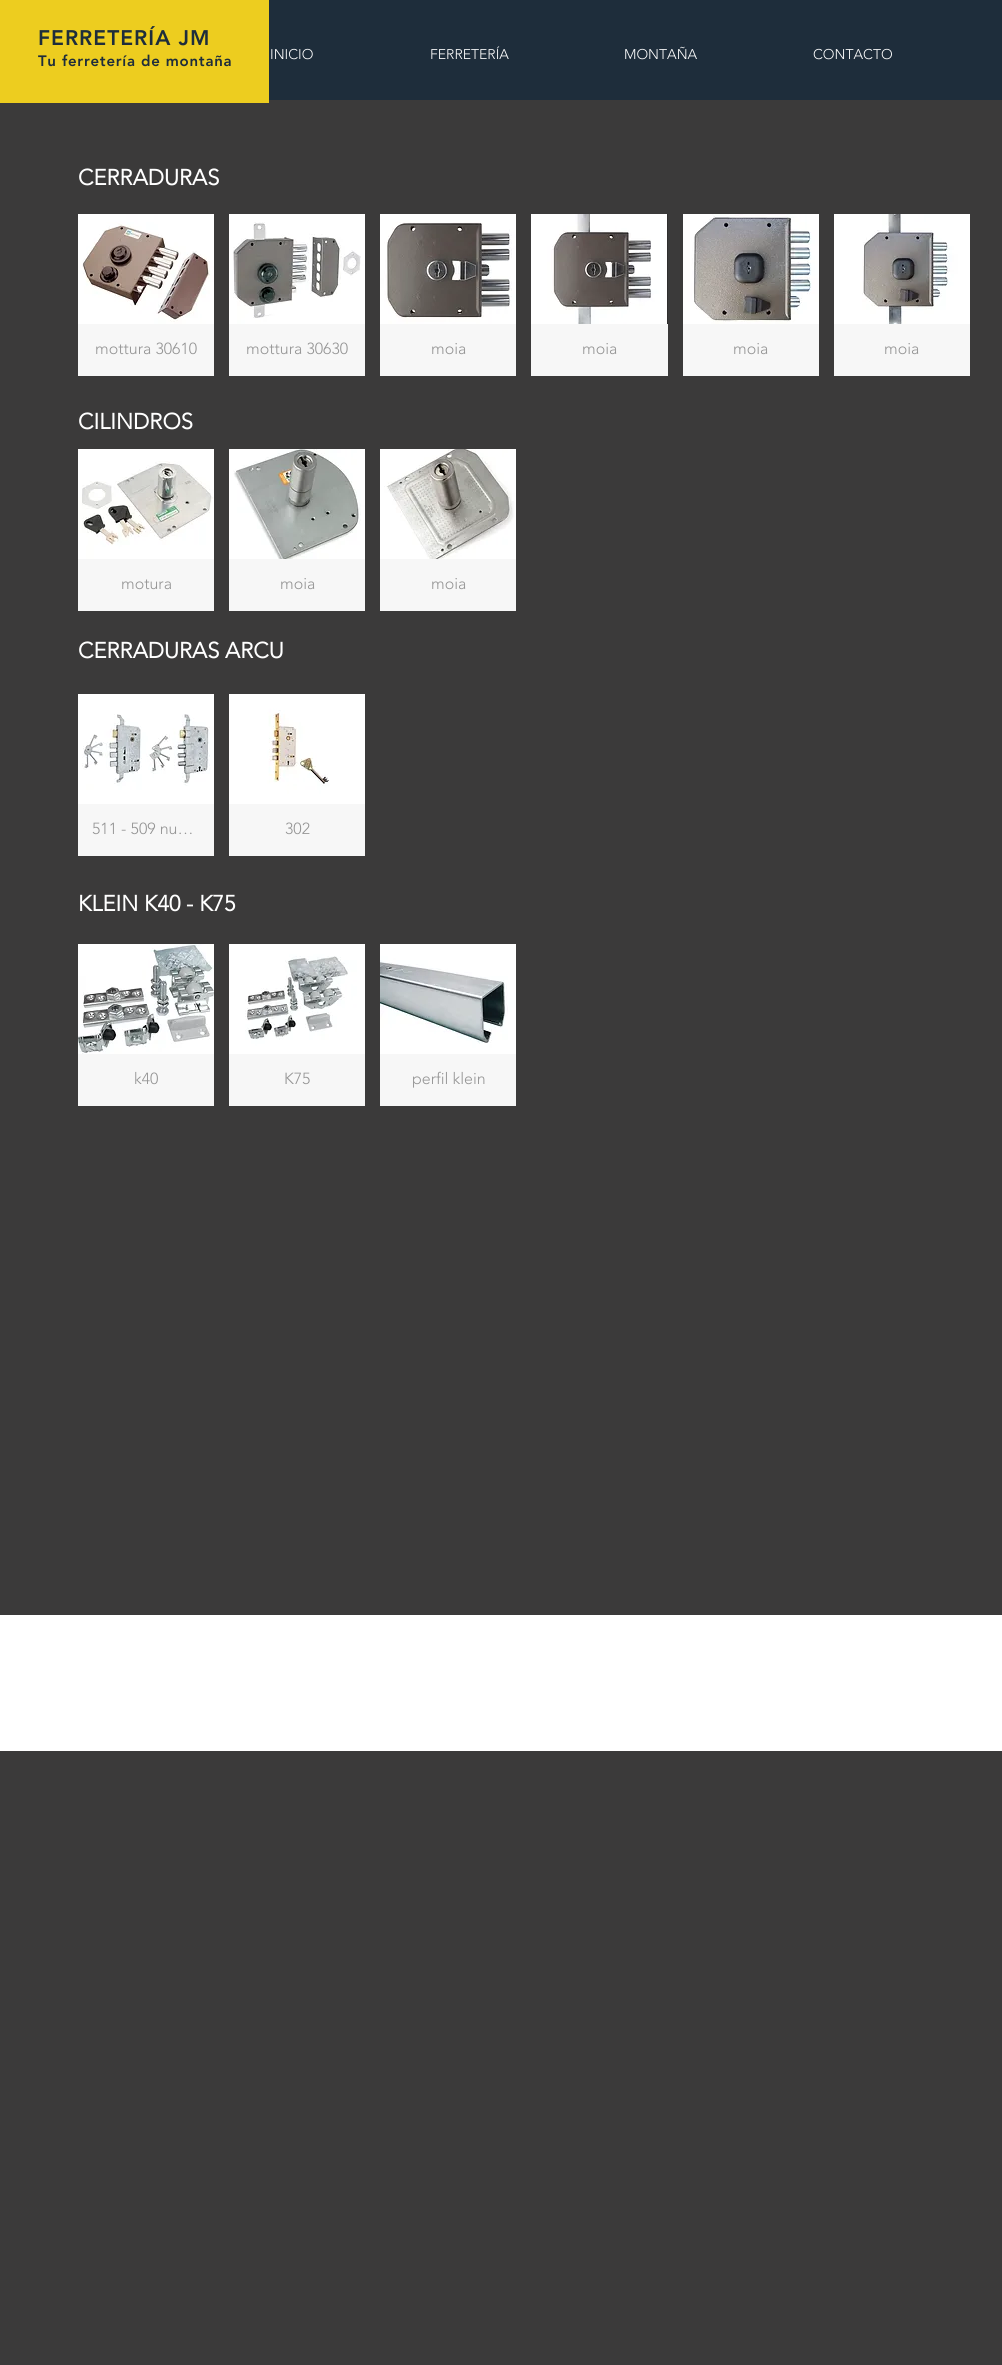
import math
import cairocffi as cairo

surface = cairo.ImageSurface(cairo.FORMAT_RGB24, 1002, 2365)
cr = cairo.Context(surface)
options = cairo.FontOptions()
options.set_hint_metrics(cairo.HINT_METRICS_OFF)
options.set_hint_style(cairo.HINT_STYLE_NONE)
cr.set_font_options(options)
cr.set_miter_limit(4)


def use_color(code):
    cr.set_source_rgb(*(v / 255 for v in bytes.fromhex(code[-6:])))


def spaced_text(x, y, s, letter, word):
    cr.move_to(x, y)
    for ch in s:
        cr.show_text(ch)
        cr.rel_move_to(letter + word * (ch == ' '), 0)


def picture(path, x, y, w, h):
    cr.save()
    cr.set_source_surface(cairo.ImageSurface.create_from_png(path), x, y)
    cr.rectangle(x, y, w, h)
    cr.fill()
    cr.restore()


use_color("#3b3a3a")
cr.paint()
use_color("#edcd1f")
cr.rectangle(0, 0, 269, 103)
cr.fill()
cr.select_font_face("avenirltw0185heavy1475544 Black")
cr.set_font_size(21)
use_color("#1e2d3b")
spaced_text(38, 45, "FERRETERÍA JM", 1, 0)
cr.set_font_size(15)
spaced_text(38, 66, "Tu ferretería de montaña", 0.75, 0)
cr.rectangle(269, 0, 733, 100)
cr.fill()
cr.select_font_face("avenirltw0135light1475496 Light")
cr.set_font_size(14)
use_color("#ffffff")
cr.move_to(270, 59)
cr.show_text("INICIO")
cr.move_to(430, 59)
cr.show_text("FERRETERÍA")
cr.move_to(624, 59)
cr.show_text("MONTAÑA")
cr.move_to(813, 59)
cr.show_text("CONTACTO")
cr.select_font_face("avenirltw0135light1475496", cairo.FONT_SLANT_NORMAL, cairo.FONT_WEIGHT_BOLD)
cr.set_font_size(22)
cr.move_to(78, 185)
cr.show_text("CERRADURAS")
picture("img1.png", 78, 214, 136, 110)
use_color("#f7f7f7")
cr.rectangle(78, 324, 136, 52)
cr.fill()
cr.select_font_face("avenirltw0135light1475496 Light")
cr.set_font_size(16)
use_color("#949494")
cr.move_to(95, 354)
cr.show_text("mottura 30610")
picture("img2.png", 229, 214, 136, 110)
use_color("#f7f7f7")
cr.rectangle(229, 324, 136, 52)
cr.fill()
use_color("#949494")
cr.move_to(246, 354)
cr.show_text("mottura 30630")
picture("img3.png", 380, 214, 136, 110)
use_color("#f7f7f7")
cr.rectangle(380, 324, 136, 52)
cr.fill()
use_color("#949494")
cr.move_to(431, 354)
cr.show_text("moia")
use_color("#2f2e2e")
cr.rectangle(667, 214, 1, 110)
cr.fill()
picture("img4.png", 531, 214, 136, 110)
use_color("#f7f7f7")
cr.rectangle(531, 324, 137, 52)
cr.fill()
use_color("#949494")
cr.move_to(582, 354)
cr.show_text("moia")
picture("img5.png", 683, 214, 136, 110)
use_color("#f7f7f7")
cr.rectangle(683, 324, 136, 52)
cr.fill()
use_color("#949494")
cr.move_to(733, 354)
cr.show_text("moia")
picture("img6.png", 834, 214, 136, 110)
use_color("#f7f7f7")
cr.rectangle(834, 324, 136, 52)
cr.fill()
use_color("#949494")
cr.move_to(884, 354)
cr.show_text("moia")
cr.select_font_face("avenirltw0135light1475496", cairo.FONT_SLANT_NORMAL, cairo.FONT_WEIGHT_BOLD)
cr.set_font_size(22)
use_color("#ffffff")
cr.move_to(78, 429)
cr.show_text("CILINDROS")
picture("img7.png", 78, 449, 136, 110)
use_color("#f7f7f7")
cr.rectangle(78, 559, 136, 52)
cr.fill()
cr.select_font_face("avenirltw0135light1475496 Light")
cr.set_font_size(16)
use_color("#949494")
cr.move_to(121, 589)
cr.show_text("motura")
picture("img8.png", 229, 449, 136, 110)
use_color("#f7f7f7")
cr.rectangle(229, 559, 136, 52)
cr.fill()
use_color("#949494")
cr.move_to(280, 589)
cr.show_text("moia")
picture("img9.png", 380, 449, 136, 110)
use_color("#f7f7f7")
cr.rectangle(380, 559, 136, 52)
cr.fill()
use_color("#949494")
cr.move_to(431, 589)
cr.show_text("moia")
cr.select_font_face("avenirltw0135light1475496", cairo.FONT_SLANT_NORMAL, cairo.FONT_WEIGHT_BOLD)
cr.set_font_size(22)
use_color("#ffffff")
cr.move_to(78, 658)
cr.show_text("CERRADURAS ARCU")
picture("img10.png", 78, 694, 136, 110)
use_color("#f7f7f7")
cr.rectangle(78, 804, 136, 52)
cr.fill()
cr.select_font_face("avenirltw0135light1475496 Light")
cr.set_font_size(16)
use_color("#949494")
cr.move_to(92, 834)
cr.show_text("511 - 509 nu…")
picture("img11.png", 229, 694, 136, 110)
use_color("#f7f7f7")
cr.rectangle(229, 804, 136, 52)
cr.fill()
use_color("#949494")
cr.move_to(285, 834)
cr.show_text("302")
cr.select_font_face("avenirltw0135light1475496", cairo.FONT_SLANT_NORMAL, cairo.FONT_WEIGHT_BOLD)
cr.set_font_size(22)
use_color("#ffffff")
cr.move_to(78, 911)
cr.show_text("KLEIN K40 - K75")
picture("img12.png", 78, 944, 136, 110)
use_color("#f7f7f7")
cr.rectangle(78, 1054, 136, 52)
cr.fill()
cr.select_font_face("avenirltw0135light1475496 Light")
cr.set_font_size(16)
use_color("#949494")
cr.move_to(134, 1084)
cr.show_text("k40")
picture("img13.png", 229, 944, 136, 110)
use_color("#f7f7f7")
cr.rectangle(229, 1054, 136, 52)
cr.fill()
use_color("#949494")
cr.move_to(284, 1084)
cr.show_text("K75")
picture("img14.png", 380, 944, 136, 110)
use_color("#f7f7f7")
cr.rectangle(380, 1054, 136, 52)
cr.fill()
use_color("#949494")
cr.move_to(412, 1084)
cr.show_text("perfil klein")
use_color("#ffffff")
cr.rectangle(0, 1615, 1002, 136)
cr.fill()
surface.write_to_png("result.png")
